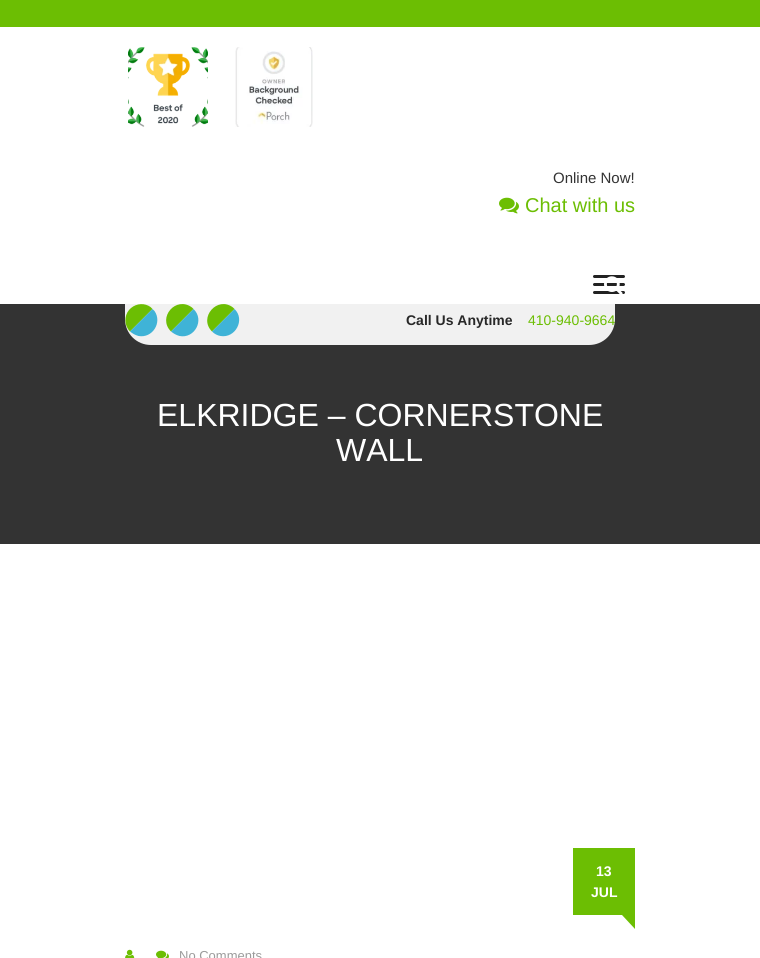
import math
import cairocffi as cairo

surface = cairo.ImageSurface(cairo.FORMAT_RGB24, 760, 958)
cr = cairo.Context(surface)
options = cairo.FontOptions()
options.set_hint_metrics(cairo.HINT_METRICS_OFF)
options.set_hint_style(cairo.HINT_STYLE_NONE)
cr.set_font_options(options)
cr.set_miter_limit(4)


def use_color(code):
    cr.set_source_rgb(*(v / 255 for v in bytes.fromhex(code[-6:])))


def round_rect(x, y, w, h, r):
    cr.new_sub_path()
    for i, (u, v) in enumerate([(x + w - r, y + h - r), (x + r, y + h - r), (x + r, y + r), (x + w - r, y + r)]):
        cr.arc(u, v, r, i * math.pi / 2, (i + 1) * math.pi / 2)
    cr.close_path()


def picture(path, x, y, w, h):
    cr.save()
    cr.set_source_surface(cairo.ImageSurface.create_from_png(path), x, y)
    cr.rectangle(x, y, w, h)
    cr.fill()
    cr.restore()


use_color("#ffffff")
cr.paint()
use_color("#6cbe03")
cr.rectangle(0, 0, 760, 27)
cr.fill()
picture("img1.png", 128, 47, 80, 80)
picture("img2.png", 235, 47, 78, 80)
cr.select_font_face("Liberation Sans")
cr.set_font_size(15)
use_color("#333333")
cr.move_to(553, 183)
cr.show_text("Online Now!")
picture("img3.png", 499, 197, 20, 17)
cr.set_font_size(20)
use_color("#6cbe03")
cr.move_to(525, 212)
cr.show_text("Chat with us")
use_color("#222222")
round_rect(593, 275, 32, 3, 1.5)
cr.fill()
round_rect(593, 283, 32, 3, 1.5)
cr.fill()
round_rect(593, 291, 32, 3, 1.5)
cr.fill()
picture("img4.png", 604, 276, 19, 18)
use_color("#333333")
cr.rectangle(0, 304, 760, 240)
cr.fill()
use_color("#f1f1f1")
cr.new_path()
cr.move_to(125, 304)
cr.line_to(615, 304)
cr.line_to(615, 319)
cr.curve_to(615, 333.5, 603.5, 345, 589, 345)
cr.line_to(151, 345)
cr.curve_to(136.5, 345, 125, 333.5, 125, 319)
cr.close_path()
cr.fill()
use_color("#6cbe03")
cr.new_path()
cr.move_to(129, 310)
cr.line_to(131, 308)
cr.curve_to(137, 303, 145, 303, 150.5, 307)
cr.line_to(152.5, 309)
cr.line_to(130, 331.5)
cr.curve_to(124, 325.5, 124, 316, 129, 310)
cr.close_path()
cr.fill()
use_color("#3fb3d7")
cr.new_path()
cr.move_to(152.5, 309)
cr.line_to(154.5, 311)
cr.curve_to(162.5, 322.5, 152.5, 338.5, 138.5, 336)
cr.curve_to(135, 335, 132.5, 333.5, 130, 331.5)
cr.close_path()
cr.fill()
use_color("#6cbe03")
cr.new_path()
cr.move_to(192, 307.5)
cr.line_to(193.5, 309)
cr.line_to(171, 331.5)
cr.curve_to(157, 317.5, 176, 295.5, 192, 307.5)
cr.close_path()
cr.fill()
use_color("#3fb3d7")
cr.new_path()
cr.move_to(193.5, 309)
cr.curve_to(205, 320, 194.5, 339, 179.5, 336)
cr.curve_to(176, 335, 173.5, 333.5, 171, 331.5)
cr.close_path()
cr.fill()
use_color("#6cbe03")
cr.new_path()
cr.move_to(233, 307.5)
cr.line_to(234.5, 309)
cr.line_to(212, 331.5)
cr.curve_to(198, 317.5, 217.5, 295.5, 233, 307.5)
cr.close_path()
cr.fill()
use_color("#3fb3d7")
cr.new_path()
cr.move_to(234.5, 309)
cr.curve_to(245.5, 319.5, 235.5, 338.5, 220.5, 336)
cr.curve_to(217.5, 335.5, 214.5, 334, 212, 331.5)
cr.close_path()
cr.fill()
cr.select_font_face("Liberation Sans", cairo.FONT_SLANT_NORMAL, cairo.FONT_WEIGHT_BOLD)
cr.set_font_size(14)
use_color("#282828")
cr.move_to(406, 325)
cr.show_text("Call Us Anytime")
cr.select_font_face("Liberation Sans")
use_color("#6cbe03")
cr.move_to(528, 325)
cr.show_text("410-940-9664")
cr.set_font_size(32)
use_color("#ffffff")
cr.move_to(157, 426)
cr.show_text("ELKRIDGE – CORNERSTONE")
cr.move_to(336, 461)
cr.show_text("WALL")
use_color("#6cbe03")
cr.rectangle(573, 848, 62, 67)
cr.fill()
cr.select_font_face("Liberation Sans", cairo.FONT_SLANT_NORMAL, cairo.FONT_WEIGHT_BOLD)
cr.set_font_size(14)
use_color("#ffffff")
cr.move_to(596, 876)
cr.show_text("13")
cr.move_to(591, 897)
cr.show_text("JUL")
use_color("#6cbe03")
cr.new_path()
cr.move_to(622, 915)
cr.line_to(635, 915)
cr.line_to(635, 929)
cr.close_path()
cr.fill()
picture("img5.png", 125, 949, 10, 9)
picture("img6.png", 156, 950, 13, 8)
cr.select_font_face("Liberation Sans")
cr.set_font_size(13)
use_color("#9b9b9b")
cr.move_to(179, 960)
cr.show_text("No Comments")
surface.write_to_png("result.png")
